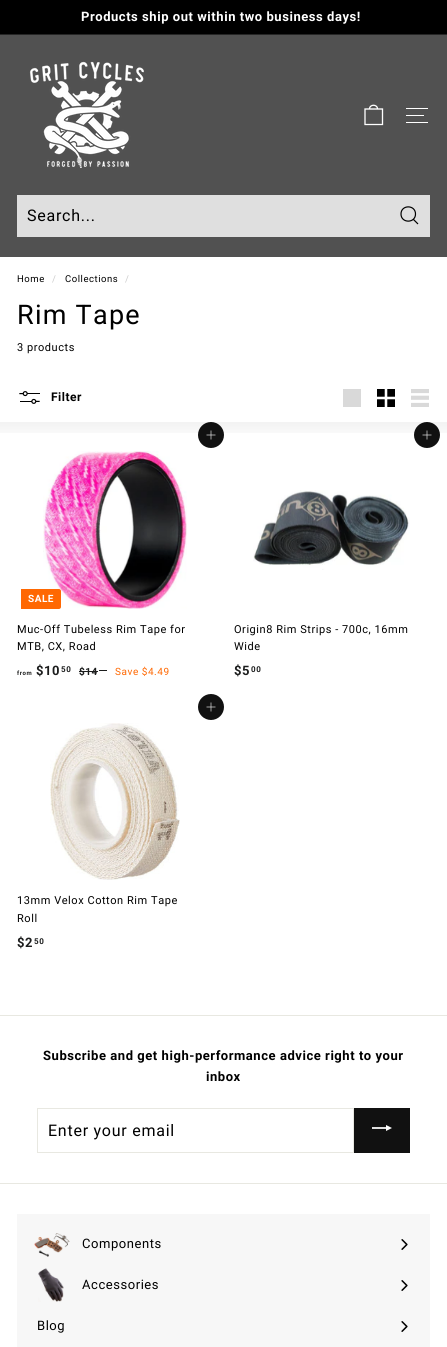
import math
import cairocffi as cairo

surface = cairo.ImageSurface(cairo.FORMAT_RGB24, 447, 1347)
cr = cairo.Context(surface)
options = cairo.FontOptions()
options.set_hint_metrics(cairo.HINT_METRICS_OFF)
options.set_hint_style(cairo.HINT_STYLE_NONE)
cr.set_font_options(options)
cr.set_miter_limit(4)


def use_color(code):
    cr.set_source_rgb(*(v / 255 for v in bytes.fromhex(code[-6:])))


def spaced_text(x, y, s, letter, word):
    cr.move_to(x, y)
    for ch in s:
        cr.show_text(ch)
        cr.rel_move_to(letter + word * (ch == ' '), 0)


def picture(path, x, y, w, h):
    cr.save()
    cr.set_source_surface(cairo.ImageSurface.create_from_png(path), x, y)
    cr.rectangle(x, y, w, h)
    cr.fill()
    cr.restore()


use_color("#ffffff")
cr.paint()
use_color("#f7f7f7")
cr.rectangle(17, 1214, 413, 133)
cr.fill()
use_color("#000000")
cr.rectangle(0, 0, 447, 34)
cr.fill()
cr.select_font_face("Roboto", cairo.FONT_SLANT_NORMAL, cairo.FONT_WEIGHT_BOLD)
cr.set_font_size(13)
use_color("#ffffff")
spaced_text(81, 21, "Products ship out within two business days!", 0.55, 0)
use_color("#262626")
cr.rectangle(0, 34, 447, 1)
cr.fill()
use_color("#515151")
cr.rectangle(0, 35, 447, 222)
cr.fill()
picture("img1.png", 29, 61, 115, 107)
cr.new_path()
cr.move_to(369.5, 109)
cr.curve_to(369.5, 104, 377.5, 104, 377.5, 109)
cr.move_to(365, 109)
cr.line_to(382.5, 109)
cr.line_to(382.5, 124.5)
cr.line_to(365, 124.5)
cr.close_path()
use_color("#ffffff")
cr.set_line_width(1.3)
cr.stroke()
cr.rectangle(406, 108, 22, 1)
cr.fill()
cr.rectangle(406, 115, 18, 1)
cr.fill()
cr.rectangle(406, 122, 22, 1)
cr.fill()
use_color("#dfdfdf")
cr.rectangle(17, 195, 413, 42)
cr.fill()
cr.select_font_face("Roboto")
cr.set_font_size(16)
use_color("#000000")
spaced_text(27, 221, "Search...", 0.75, 0)
cr.new_path()
cr.move_to(415.5, 214)
cr.curve_to(415.5, 223.5, 401, 223.5, 401, 214)
cr.curve_to(401, 204.5, 415.5, 204.5, 415.5, 214)
cr.close_path()
cr.move_to(418, 224)
cr.line_to(413.5, 219.5)
cr.set_line_width(1.2)
cr.stroke()
cr.set_font_size(9.5)
spaced_text(17, 282, "Home", 0.55, 0)
use_color("#cccccc")
spaced_text(52, 282, "/", 0.55, 0)
use_color("#000000")
spaced_text(65, 282, "Collections", 0.55, 0)
use_color("#cccccc")
spaced_text(125, 282, "/", 0.55, 0)
cr.set_font_size(27)
use_color("#000000")
spaced_text(17, 324, "Rim Tape", 1.25, 0)
cr.set_font_size(11)
spaced_text(17, 351, "3 products", 0.55, 0)
picture("img2.png", 19, 391, 21, 13)
cr.select_font_face("Roboto", cairo.FONT_SLANT_NORMAL, cairo.FONT_WEIGHT_BOLD)
cr.set_font_size(12)
spaced_text(51, 401, "Filter", 0.5, 0)
use_color("#d9d9d9")
cr.rectangle(343, 389, 18, 18)
cr.fill()
picture("img3.png", 377, 389, 18, 18)
picture("img4.png", 411, 389, 18, 18)
use_color("#111111")
cr.arc(211, 435, 13, 0, 2 * math.pi)
cr.fill()
cr.new_path()
cr.move_to(211, 430.5)
cr.line_to(211, 439.5)
cr.move_to(215.5, 435)
cr.line_to(206.5, 435)
use_color("#ffffff")
cr.set_line_width(0.6)
cr.stroke()
use_color("#111111")
cr.arc(427, 435, 13, 0, 2 * math.pi)
cr.fill()
cr.new_path()
cr.move_to(427, 430.5)
cr.line_to(427, 439.5)
cr.move_to(431.5, 435)
cr.line_to(422.5, 435)
use_color("#ffffff")
cr.stroke()
gradient = cairo.LinearGradient(224, 422, 224, 442)
gradient.add_color_stop_rgba(0, 0, 0, 0, 0.05)
gradient.add_color_stop_rgba(1, 0, 0, 0, 0)
cr.set_source(gradient)
cr.rectangle(0, 422, 447, 11)
cr.fill()
picture("img5.png", 43, 451, 144, 158)
use_color("#ff6802")
cr.new_path()
cr.move_to(21, 589)
cr.line_to(59, 589)
cr.curve_to(60, 589, 61, 590, 61, 591)
cr.line_to(61, 607)
cr.curve_to(61, 608, 60, 609, 59, 609)
cr.line_to(21, 609)
cr.close_path()
cr.fill()
cr.set_font_size(10)
use_color("#ffffff")
spaced_text(28, 602, "SALE", 0.5, 0)
cr.select_font_face("Roboto")
cr.set_font_size(11)
use_color("#000000")
spaced_text(17, 633, "Muc-Off Tubeless Rim Tape for", 0.55, 0)
spaced_text(17, 650, "MTB, CX, Road", 0.55, 0)
cr.select_font_face("Roboto", cairo.FONT_SLANT_NORMAL, cairo.FONT_WEIGHT_BOLD)
cr.set_font_size(6)
use_color("#1c1d1d")
spaced_text(17, 675, "from", 0.55, 0)
cr.set_font_size(13)
spaced_text(36, 675, "$10", 0.55, 0)
cr.set_font_size(8)
spaced_text(61, 672, "50", 0.55, 0)
cr.set_font_size(10)
spaced_text(79, 675, "$14", 0.55, 0)
cr.rectangle(79, 671, 19, 1)
cr.fill()
cr.rectangle(99, 670, 8, 1)
cr.fill()
cr.select_font_face("Roboto")
use_color("#ff6802")
spaced_text(115, 675, "Save $4.49", 0.55, 0)
picture("img6.png", 253, 490, 157, 80)
cr.set_font_size(11)
use_color("#000000")
spaced_text(234, 633, "Origin8 Rim Strips - 700c, 16mm", 0.55, 0)
spaced_text(234, 650, "Wide", 0.55, 0)
cr.select_font_face("Roboto", cairo.FONT_SLANT_NORMAL, cairo.FONT_WEIGHT_BOLD)
cr.set_font_size(13)
use_color("#1c1d1d")
spaced_text(234, 675, "$5", 0.55, 0)
cr.set_font_size(8)
spaced_text(251, 672, "00", 0.55, 0)
use_color("#111111")
cr.new_path()
cr.arc(211, 707, 13, 0, 2 * math.pi)
cr.fill()
cr.new_path()
cr.move_to(211, 702.5)
cr.line_to(211, 711.5)
cr.move_to(215.5, 707)
cr.line_to(206.5, 707)
use_color("#ffffff")
cr.stroke()
picture("img7.png", 50, 723, 130, 157)
cr.select_font_face("Roboto")
cr.set_font_size(11)
use_color("#000000")
spaced_text(17, 904, "13mm Velox Cotton Rim Tape", 0.55, 0)
spaced_text(17, 922, "Roll", 0.55, 0)
cr.select_font_face("Roboto", cairo.FONT_SLANT_NORMAL, cairo.FONT_WEIGHT_BOLD)
cr.set_font_size(13)
use_color("#1c1d1d")
spaced_text(17, 947, "$2", 0.55, 0)
cr.set_font_size(8)
spaced_text(34, 944, "50", 0.55, 0)
use_color("#e8e8e1")
cr.rectangle(0, 1015, 447, 1)
cr.fill()
cr.set_font_size(13)
use_color("#000000")
spaced_text(43, 1060, "Subscribe and get high-performance advice right to your", 0.55, 0)
spaced_text(206, 1081, "inbox", 0.55, 0)
cr.rectangle(37.5, 1108.5, 316, 44)
use_color("#e8e8e1")
cr.set_line_width(1)
cr.stroke()
cr.select_font_face("Roboto")
cr.set_font_size(16)
use_color("#000000")
spaced_text(48, 1136, "Enter your email", 0.75, 0)
use_color("#111111")
cr.rectangle(354, 1108, 56, 45)
cr.fill()
picture("img8.png", 372, 1125, 20, 6)
use_color("#e8e8e1")
cr.rectangle(0, 1183, 447, 1)
cr.fill()
picture("img9.png", 34, 1233, 36, 24)
cr.set_font_size(13)
use_color("#000000")
spaced_text(82, 1248, "Components", 0.55, 0)
picture("img10.png", 401, 1239, 7, 11)
picture("img11.png", 38, 1268, 26, 34)
spaced_text(82, 1289, "Accessories", 0.55, 0)
picture("img10.png", 401, 1280, 7, 11)
spaced_text(37, 1330, "Blog", 0.55, 0)
picture("img10.png", 401, 1321, 7, 11)
surface.write_to_png("result.png")
